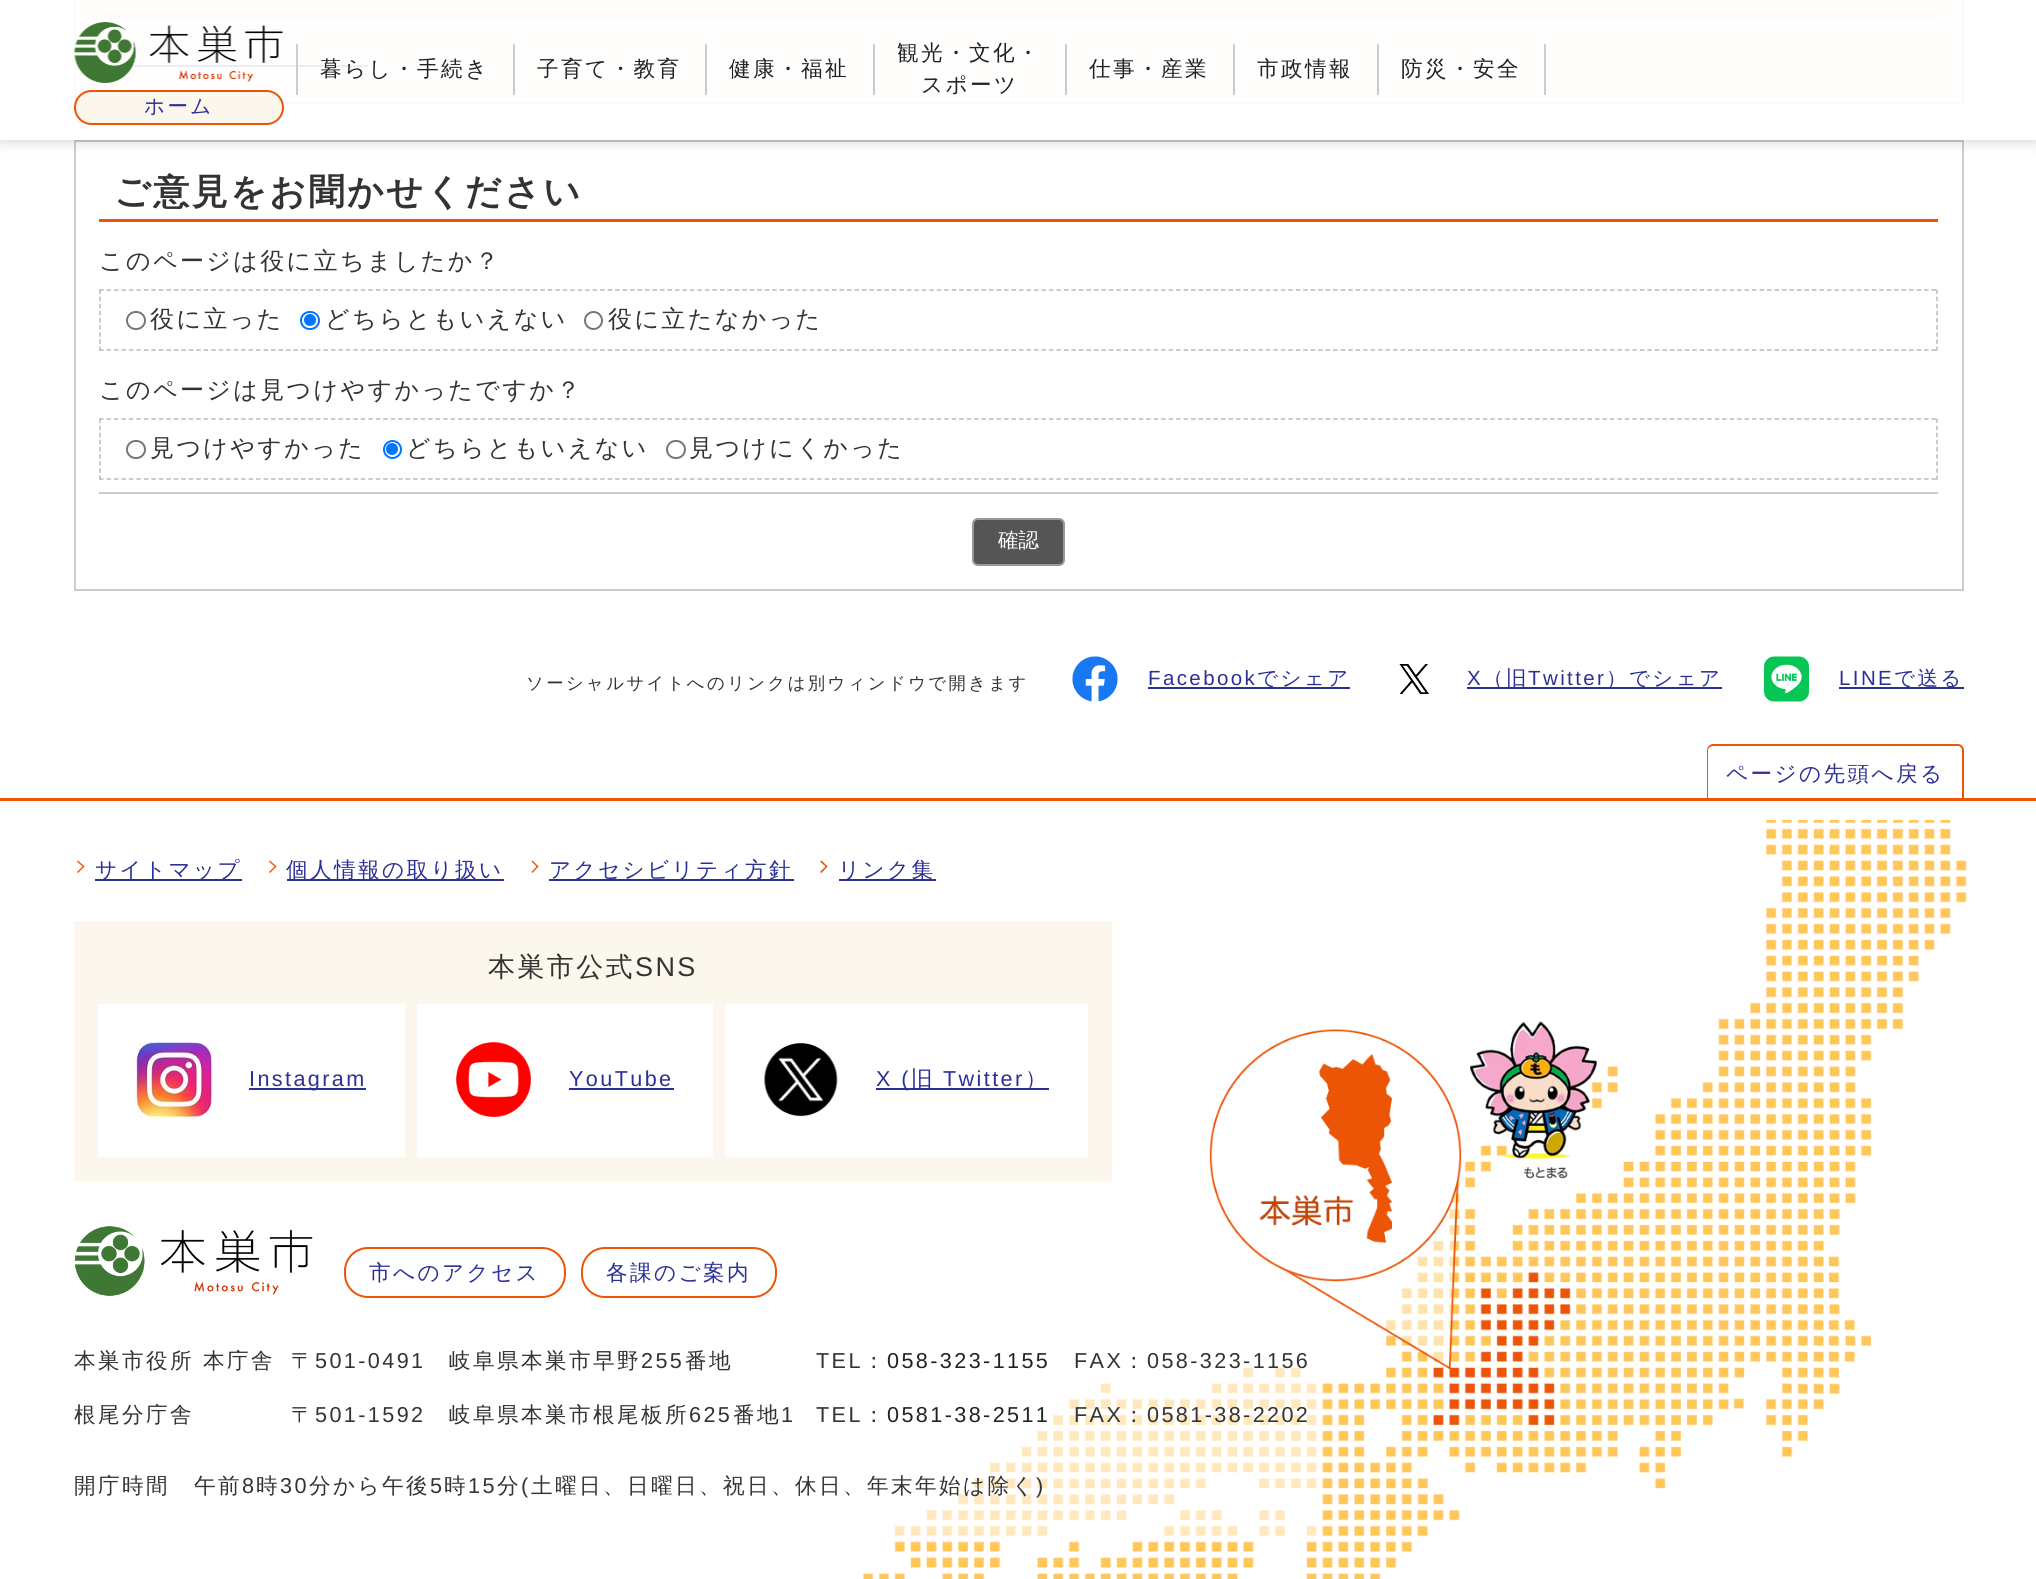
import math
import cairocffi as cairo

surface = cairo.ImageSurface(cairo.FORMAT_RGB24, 2036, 1579)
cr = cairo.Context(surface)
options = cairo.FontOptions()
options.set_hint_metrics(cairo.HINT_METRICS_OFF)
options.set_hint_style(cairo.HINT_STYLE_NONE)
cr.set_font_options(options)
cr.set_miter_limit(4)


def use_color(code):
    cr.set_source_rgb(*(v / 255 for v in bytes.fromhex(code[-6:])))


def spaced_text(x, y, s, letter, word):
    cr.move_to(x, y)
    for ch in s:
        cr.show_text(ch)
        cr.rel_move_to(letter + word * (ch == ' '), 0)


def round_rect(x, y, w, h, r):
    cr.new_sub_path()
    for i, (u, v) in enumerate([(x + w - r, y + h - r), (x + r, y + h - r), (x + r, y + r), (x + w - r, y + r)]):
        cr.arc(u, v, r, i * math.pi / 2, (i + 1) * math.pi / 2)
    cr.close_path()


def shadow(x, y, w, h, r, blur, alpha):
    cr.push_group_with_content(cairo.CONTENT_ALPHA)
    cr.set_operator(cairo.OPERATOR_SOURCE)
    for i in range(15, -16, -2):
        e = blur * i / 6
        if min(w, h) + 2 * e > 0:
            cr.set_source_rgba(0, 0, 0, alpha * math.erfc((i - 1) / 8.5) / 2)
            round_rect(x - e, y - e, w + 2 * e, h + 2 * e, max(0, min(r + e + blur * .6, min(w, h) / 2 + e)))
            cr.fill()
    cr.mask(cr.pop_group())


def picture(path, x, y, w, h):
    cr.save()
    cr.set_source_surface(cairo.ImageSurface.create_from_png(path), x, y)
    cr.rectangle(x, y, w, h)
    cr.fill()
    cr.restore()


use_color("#ffffff")
cr.paint()
use_color("#fcf7ed")
cr.rectangle(75, -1, 1888, 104)
cr.fill_preserve()
use_color("#cccccc")
cr.stroke()
cr.rectangle(99, 15, 1839, 2)
cr.fill()
use_color("#2b3095")
cr.rectangle(132, 65, 236, 2)
cr.fill()
cr.rectangle(75, 141, 1888, 449)
use_color("#cccccc")
cr.stroke()
cr.save()
cr.set_fill_rule(cairo.FILL_RULE_EVEN_ODD)
cr.new_path()
cr.move_to(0, 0)
cr.line_to(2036, 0)
cr.line_to(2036, 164)
cr.line_to(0, 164)
cr.close_path()
cr.move_to(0, 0)
cr.line_to(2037, 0)
cr.line_to(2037, 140)
cr.line_to(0, 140)
cr.close_path()
cr.clip()
use_color("#000000")
shadow(0, 0, 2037, 140, 0, 7.5, 0.2)
cr.restore()
cr.set_source_rgba(1, 1, 1, 0.9)
cr.rectangle(0, 0, 2036, 140)
cr.fill()
use_color("#cccccc")
cr.rectangle(296, 44, 2, 51)
cr.fill()
cr.select_font_face("WenQuanYi Zen Hei Medium")
cr.set_font_size(21.6)
use_color("#222222")
spaced_text(320, 76, "暮らし・手続き", 2.4, 0)
use_color("#cccccc")
cr.rectangle(513, 44, 2, 51)
cr.fill()
use_color("#222222")
spaced_text(537, 76, "子育て・教育", 2.4, 0)
use_color("#cccccc")
cr.rectangle(705, 44, 2, 51)
cr.fill()
use_color("#222222")
spaced_text(729, 76, "健康・福祉", 2.4, 0)
use_color("#cccccc")
cr.rectangle(873, 44, 2, 51)
cr.fill()
use_color("#222222")
spaced_text(897, 60, "観光・文化・", 2.4, 0)
spaced_text(921, 92, "スポーツ", 2.4, 0)
use_color("#cccccc")
cr.rectangle(1065, 44, 2, 51)
cr.fill()
use_color("#222222")
spaced_text(1089, 76, "仕事・産業", 2.4, 0)
use_color("#cccccc")
cr.rectangle(1233, 44, 2, 51)
cr.fill()
use_color("#222222")
spaced_text(1257, 76, "市政情報", 2.4, 0)
use_color("#cccccc")
cr.rectangle(1377, 44, 2, 51)
cr.fill()
use_color("#222222")
spaced_text(1401, 76, "防災・安全", 2.4, 0)
use_color("#cccccc")
cr.rectangle(1544, 44, 2, 51)
cr.fill()
picture("img1.png", 74, 22, 209, 61)
use_color("#fbf7ed")
round_rect(75, 91, 208, 33, 16.5)
cr.fill_preserve()
use_color("#eb5505")
cr.stroke()
cr.set_font_size(20.5)
use_color("#2b3095")
spaced_text(144, 113, "ホーム", 2.4, 0)
use_color("#eb5505")
cr.rectangle(99, 219, 1839, 3)
cr.fill()
cr.select_font_face("WenQuanYi Zen Hei", cairo.FONT_SLANT_NORMAL, cairo.FONT_WEIGHT_BOLD)
cr.set_font_size(36)
use_color("#333333")
spaced_text(114, 204, "ご意見をお聞かせください", 2.4, 0)
cr.select_font_face("WenQuanYi Zen Hei Medium")
cr.set_font_size(24)
spaced_text(99, 269, "このページは役に立ちましたか？", 2.4, 0)
cr.new_path()
cr.move_to(99, 290)
cr.line_to(1938, 290)
use_color("#bbbbbb")
cr.set_line_width(1.5)
cr.set_dash([4.5, 2.98])
cr.stroke()
cr.new_path()
cr.move_to(1937, 289.5)
cr.line_to(1937, 351)
cr.set_dash([4.5, 2.62])
cr.stroke()
cr.new_path()
cr.move_to(99, 350)
cr.line_to(1938, 350)
cr.set_dash([4.5, 2.98])
cr.stroke()
cr.new_path()
cr.move_to(100, 289.5)
cr.line_to(100, 351)
cr.set_dash([4.5, 2.62])
cr.stroke()
round_rect(127, 312, 18, 17, 8.5)
use_color("#767676")
cr.set_line_width(2)
cr.set_dash([])
cr.stroke()
use_color("#333333")
spaced_text(150, 327, "役に立った", 2.4, 0)
round_rect(301, 312, 18, 17, 8.5)
use_color("#0075ff")
cr.stroke()
cr.arc(310, 320, 6, 0, 2 * math.pi)
cr.fill()
use_color("#333333")
spaced_text(325, 327, "どちらともいえない", 2.4, 0)
cr.new_path()
cr.arc(593.5, 320.5, 8.5, 0, 2 * math.pi)
use_color("#767676")
cr.stroke()
use_color("#333333")
spaced_text(608, 327, "役に立たなかった", 2.4, 0)
spaced_text(99, 398, "このページは見つけやすかったですか？", 2.4, 0)
cr.new_path()
cr.move_to(99, 419)
cr.line_to(1938, 419)
use_color("#bbbbbb")
cr.set_line_width(1.5)
cr.set_dash([4.5, 2.98])
cr.stroke()
cr.new_path()
cr.move_to(1937, 418.5)
cr.line_to(1937, 480)
cr.set_dash([4.5, 2.62])
cr.stroke()
cr.new_path()
cr.move_to(99, 479)
cr.line_to(1938, 479)
cr.set_dash([4.5, 2.98])
cr.stroke()
cr.new_path()
cr.move_to(100, 418.5)
cr.line_to(100, 480)
cr.set_dash([4.5, 2.62])
cr.stroke()
round_rect(127, 441, 18, 17, 8.5)
use_color("#767676")
cr.set_line_width(2)
cr.set_dash([])
cr.stroke()
use_color("#333333")
spaced_text(150, 456, "見つけやすかった", 2.4, 0)
cr.new_path()
cr.arc(392.5, 449.5, 8.5, 0, 2 * math.pi)
use_color("#0075ff")
cr.stroke()
cr.arc(392, 449, 6, 0, 2 * math.pi)
cr.fill()
use_color("#333333")
spaced_text(406, 456, "どちらともいえない", 2.4, 0)
round_rect(667, 441, 18, 17, 8.5)
use_color("#767676")
cr.stroke()
use_color("#333333")
spaced_text(689, 456, "見つけにくかった", 2.4, 0)
use_color("#cccccc")
cr.rectangle(99, 492, 1839, 2)
cr.fill()
use_color("#555555")
round_rect(973, 519, 91, 46, 5)
cr.fill_preserve()
use_color("#999999")
cr.stroke()
cr.set_font_size(20.5)
use_color("#ffffff")
cr.move_to(998, 547)
cr.show_text("確認")
cr.set_font_size(17.35)
use_color("#333333")
spaced_text(526, 689, "ソーシャルサイトへのリンクは別ウィンドウで開きます", 2.4, 0)
picture("img2.png", 1072, 656, 46, 46)
cr.select_font_face("Liberation Sans")
cr.set_font_size(20.5)
use_color("#2b3095")
spaced_text(1148, 685, "Facebook", 2.4, 0)
cr.rectangle(1148, 687, 202, 2)
cr.fill()
cr.select_font_face("WenQuanYi Zen Hei Medium")
spaced_text(1257, 685, "でシェア", 2.4, 0)
picture("img3.png", 1399, 664, 30, 30)
cr.select_font_face("Liberation Sans")
spaced_text(1467, 685, "X", 2.4, 0)
cr.rectangle(1467, 687, 255, 2)
cr.fill()
cr.select_font_face("WenQuanYi Zen Hei Medium")
spaced_text(1483, 685, "（旧", 2.4, 0)
cr.select_font_face("Liberation Sans")
spaced_text(1528, 685, "Twitter", 2.4, 0)
cr.select_font_face("WenQuanYi Zen Hei Medium")
spaced_text(1606, 685, "）でシェア", 2.4, 0)
picture("img4.png", 1764, 656, 45, 46)
cr.select_font_face("Liberation Sans")
spaced_text(1839, 685, "LINE", 2.4, 0)
cr.rectangle(1839, 687, 125, 2)
cr.fill()
cr.select_font_face("WenQuanYi Zen Hei Medium")
spaced_text(1894, 685, "で送る", 2.4, 0)
use_color("#eb5505")
cr.set_fill_rule(cairo.FILL_RULE_EVEN_ODD)
cr.new_path()
cr.move_to(1713, 744)
cr.line_to(1958, 744)
cr.curve_to(1961, 744, 1964, 747, 1964, 750)
cr.line_to(1964, 798)
cr.line_to(1707, 798)
cr.line_to(1707, 750)
cr.curve_to(1707, 747, 1710, 744, 1713, 744)
cr.close_path()
cr.move_to(1713, 746)
cr.line_to(1958, 746)
cr.curve_to(1960, 746, 1962, 748, 1962, 750)
cr.line_to(1962, 798)
cr.line_to(1708, 798)
cr.line_to(1708, 750)
cr.curve_to(1708, 748, 1711, 746, 1713, 746)
cr.close_path()
cr.fill()
cr.set_font_size(21.6)
use_color("#2b3095")
spaced_text(1726, 781, "ページの先頭へ戻る", 2.4, 0)
picture("img5.png", 863, 820, 1104, 759)
use_color("#eb5505")
cr.rectangle(0, 798, 2036, 3)
cr.fill()
cr.set_fill_rule(cairo.FILL_RULE_WINDING)
cr.new_path()
cr.move_to(77, 861.5)
cr.line_to(78, 860.5)
cr.line_to(84.5, 866.5)
cr.line_to(83.5, 867.5)
cr.close_path()
cr.fill()
cr.new_path()
cr.move_to(77, 872)
cr.line_to(83.5, 865.5)
cr.line_to(84.5, 866.5)
cr.line_to(78, 873)
cr.close_path()
cr.fill()
use_color("#2b3095")
cr.rectangle(95, 879, 147, 2)
cr.fill()
spaced_text(95, 877, "サイトマップ", 2.4, 0)
use_color("#eb5505")
cr.new_path()
cr.move_to(269, 861.5)
cr.line_to(270, 860.5)
cr.line_to(276.5, 866.5)
cr.line_to(275.5, 867.5)
cr.close_path()
cr.fill()
cr.new_path()
cr.move_to(269, 872)
cr.line_to(275.5, 865.5)
cr.line_to(276.5, 866.5)
cr.line_to(270, 873)
cr.close_path()
cr.fill()
use_color("#2b3095")
cr.rectangle(287, 879, 217, 2)
cr.fill()
spaced_text(286, 877, "個人情報の取り扱い", 2.4, 0)
use_color("#eb5505")
cr.new_path()
cr.move_to(531.5, 861.5)
cr.line_to(532.5, 860.5)
cr.line_to(538.5, 866.5)
cr.line_to(537.5, 867.5)
cr.close_path()
cr.fill()
cr.new_path()
cr.move_to(531.5, 872)
cr.line_to(537.5, 865.5)
cr.line_to(538.5, 866.5)
cr.line_to(532.5, 873)
cr.close_path()
cr.fill()
use_color("#2b3095")
cr.rectangle(549, 879, 245, 2)
cr.fill()
spaced_text(549, 877, "アクセシビリティ方針", 2.4, 0)
use_color("#eb5505")
cr.new_path()
cr.move_to(820, 861.5)
cr.line_to(821.5, 860.5)
cr.line_to(827.5, 866.5)
cr.line_to(826.5, 867.5)
cr.close_path()
cr.fill()
cr.new_path()
cr.move_to(820, 872)
cr.line_to(826.5, 865.5)
cr.line_to(827.5, 866.5)
cr.line_to(821.5, 873)
cr.close_path()
cr.fill()
use_color("#2b3095")
cr.rectangle(839, 879, 97, 2)
cr.fill()
spaced_text(838, 877, "リンク集", 2.4, 0)
use_color("#fbf7ed")
cr.rectangle(74, 921, 1038, 260)
cr.fill()
cr.set_font_size(27)
use_color("#333333")
spaced_text(488, 976, "本巣市公式", 2.4, 0)
cr.select_font_face("Liberation Sans")
spaced_text(635, 976, "SNS", 2.4, 0)
use_color("#ffffff")
cr.rectangle(98, 1004, 307, 153)
cr.fill()
picture("img6.png", 136, 1042, 76, 75)
use_color("#2b3095")
cr.rectangle(249, 1088, 117, 2)
cr.fill()
cr.set_font_size(21.6)
spaced_text(249, 1086, "Instagram", 2.4, 0)
use_color("#ffffff")
cr.rectangle(417, 1004, 296, 153)
cr.fill()
picture("img7.png", 456, 1042, 75, 75)
use_color("#2b3095")
spaced_text(569, 1086, "YouTube", 2.4, 0)
cr.rectangle(569, 1088, 105, 2)
cr.fill()
use_color("#ffffff")
cr.rectangle(725, 1004, 363, 153)
cr.fill()
picture("img8.png", 764, 1043, 74, 74)
use_color("#2b3095")
cr.rectangle(876, 1088, 173, 2)
cr.fill()
spaced_text(876, 1086, "X (", 2.4, 0)
cr.select_font_face("WenQuanYi Zen Hei Medium")
spaced_text(911, 1086, "旧", 2.4, 0)
cr.select_font_face("Liberation Sans")
spaced_text(943, 1086, "Twitter", 2.4, 0)
cr.select_font_face("WenQuanYi Zen Hei Medium")
spaced_text(1025, 1086, "）", 2.4, 0)
picture("img9.png", 74, 1226, 239, 70)
round_rect(345, 1248, 220, 49, 23)
use_color("#eb5505")
cr.stroke()
use_color("#2b3095")
spaced_text(369, 1280, "市へのアクセス", 2.4, 0)
round_rect(582, 1248, 194, 49, 23)
use_color("#eb5505")
cr.stroke()
use_color("#2b3095")
spaced_text(606, 1280, "各課のご案内", 2.4, 0)
cr.set_source_rgba(1, 1, 1, 0.6)
cr.rectangle(894, 1367, 423, 170)
cr.fill()
use_color("#333333")
spaced_text(74, 1368, "本巣市役所 本庁舎", 2.4, 0)
spaced_text(291, 1368, "〒", 2.4, 0)
cr.select_font_face("Liberation Sans")
spaced_text(315, 1368, "501-0491", 2.4, 0)
cr.select_font_face("WenQuanYi Zen Hei Medium")
spaced_text(449, 1368, "岐阜県本巣市早野", 2.4, 0)
cr.select_font_face("Liberation Sans")
spaced_text(641, 1368, "255", 2.4, 0)
cr.select_font_face("WenQuanYi Zen Hei Medium")
spaced_text(685, 1368, "番地", 2.4, 0)
cr.select_font_face("Liberation Sans")
spaced_text(816, 1368, "TEL", 2.4, 0)
cr.select_font_face("WenQuanYi Zen Hei Medium")
spaced_text(863, 1368, "：", 2.4, 0)
cr.select_font_face("Liberation Sans")
use_color("#222222")
spaced_text(887, 1368, "058-323-1155", 2.4, 0)
use_color("#333333")
spaced_text(1074, 1368, "FAX", 2.4, 0)
cr.select_font_face("WenQuanYi Zen Hei Medium")
spaced_text(1123, 1368, "：", 2.4, 0)
cr.select_font_face("Liberation Sans")
spaced_text(1147, 1368, "058-323-1156", 2.4, 0)
cr.select_font_face("WenQuanYi Zen Hei Medium")
spaced_text(74, 1422, "根尾分庁舎", 2.4, 0)
spaced_text(291, 1422, "〒", 2.4, 0)
cr.select_font_face("Liberation Sans")
spaced_text(315, 1422, "501-1592", 2.4, 0)
cr.select_font_face("WenQuanYi Zen Hei Medium")
spaced_text(449, 1422, "岐阜県本巣市根尾板所", 2.4, 0)
cr.select_font_face("Liberation Sans")
spaced_text(689, 1422, "625", 2.4, 0)
cr.select_font_face("WenQuanYi Zen Hei Medium")
spaced_text(733, 1422, "番地", 2.4, 0)
cr.select_font_face("Liberation Sans")
spaced_text(781, 1422, "1", 2.4, 0)
spaced_text(816, 1422, "TEL", 2.4, 0)
cr.select_font_face("WenQuanYi Zen Hei Medium")
spaced_text(863, 1422, "：", 2.4, 0)
cr.select_font_face("Liberation Sans")
use_color("#222222")
spaced_text(887, 1422, "0581-38-2511", 2.4, 0)
use_color("#333333")
spaced_text(1074, 1422, "FAX", 2.4, 0)
cr.select_font_face("WenQuanYi Zen Hei Medium")
spaced_text(1123, 1422, "：", 2.4, 0)
cr.select_font_face("Liberation Sans")
spaced_text(1147, 1422, "0581-38-2202", 2.4, 0)
cr.select_font_face("WenQuanYi Zen Hei Medium")
spaced_text(74, 1493, "開庁時間　午前", 2.4, 0)
cr.select_font_face("Liberation Sans")
spaced_text(242, 1493, "8", 2.4, 0)
cr.select_font_face("WenQuanYi Zen Hei Medium")
spaced_text(256, 1493, "時", 2.4, 0)
cr.select_font_face("Liberation Sans")
spaced_text(280, 1493, "30", 2.4, 0)
cr.select_font_face("WenQuanYi Zen Hei Medium")
spaced_text(309, 1493, "分から午後", 2.4, 0)
cr.select_font_face("Liberation Sans")
spaced_text(430, 1493, "5", 2.4, 0)
cr.select_font_face("WenQuanYi Zen Hei Medium")
spaced_text(444, 1493, "時", 2.4, 0)
cr.select_font_face("Liberation Sans")
spaced_text(468, 1493, "15", 2.4, 0)
cr.select_font_face("WenQuanYi Zen Hei Medium")
spaced_text(497, 1493, "分", 2.4, 0)
cr.select_font_face("Liberation Sans")
spaced_text(521, 1493, "(", 2.4, 0)
cr.select_font_face("WenQuanYi Zen Hei Medium")
spaced_text(531, 1493, "土曜日、日曜日、祝日、休日、年末年始は除く", 2.4, 0)
cr.select_font_face("Liberation Sans")
spaced_text(1036, 1493, ")", 2.4, 0)
surface.write_to_png("result.png")
